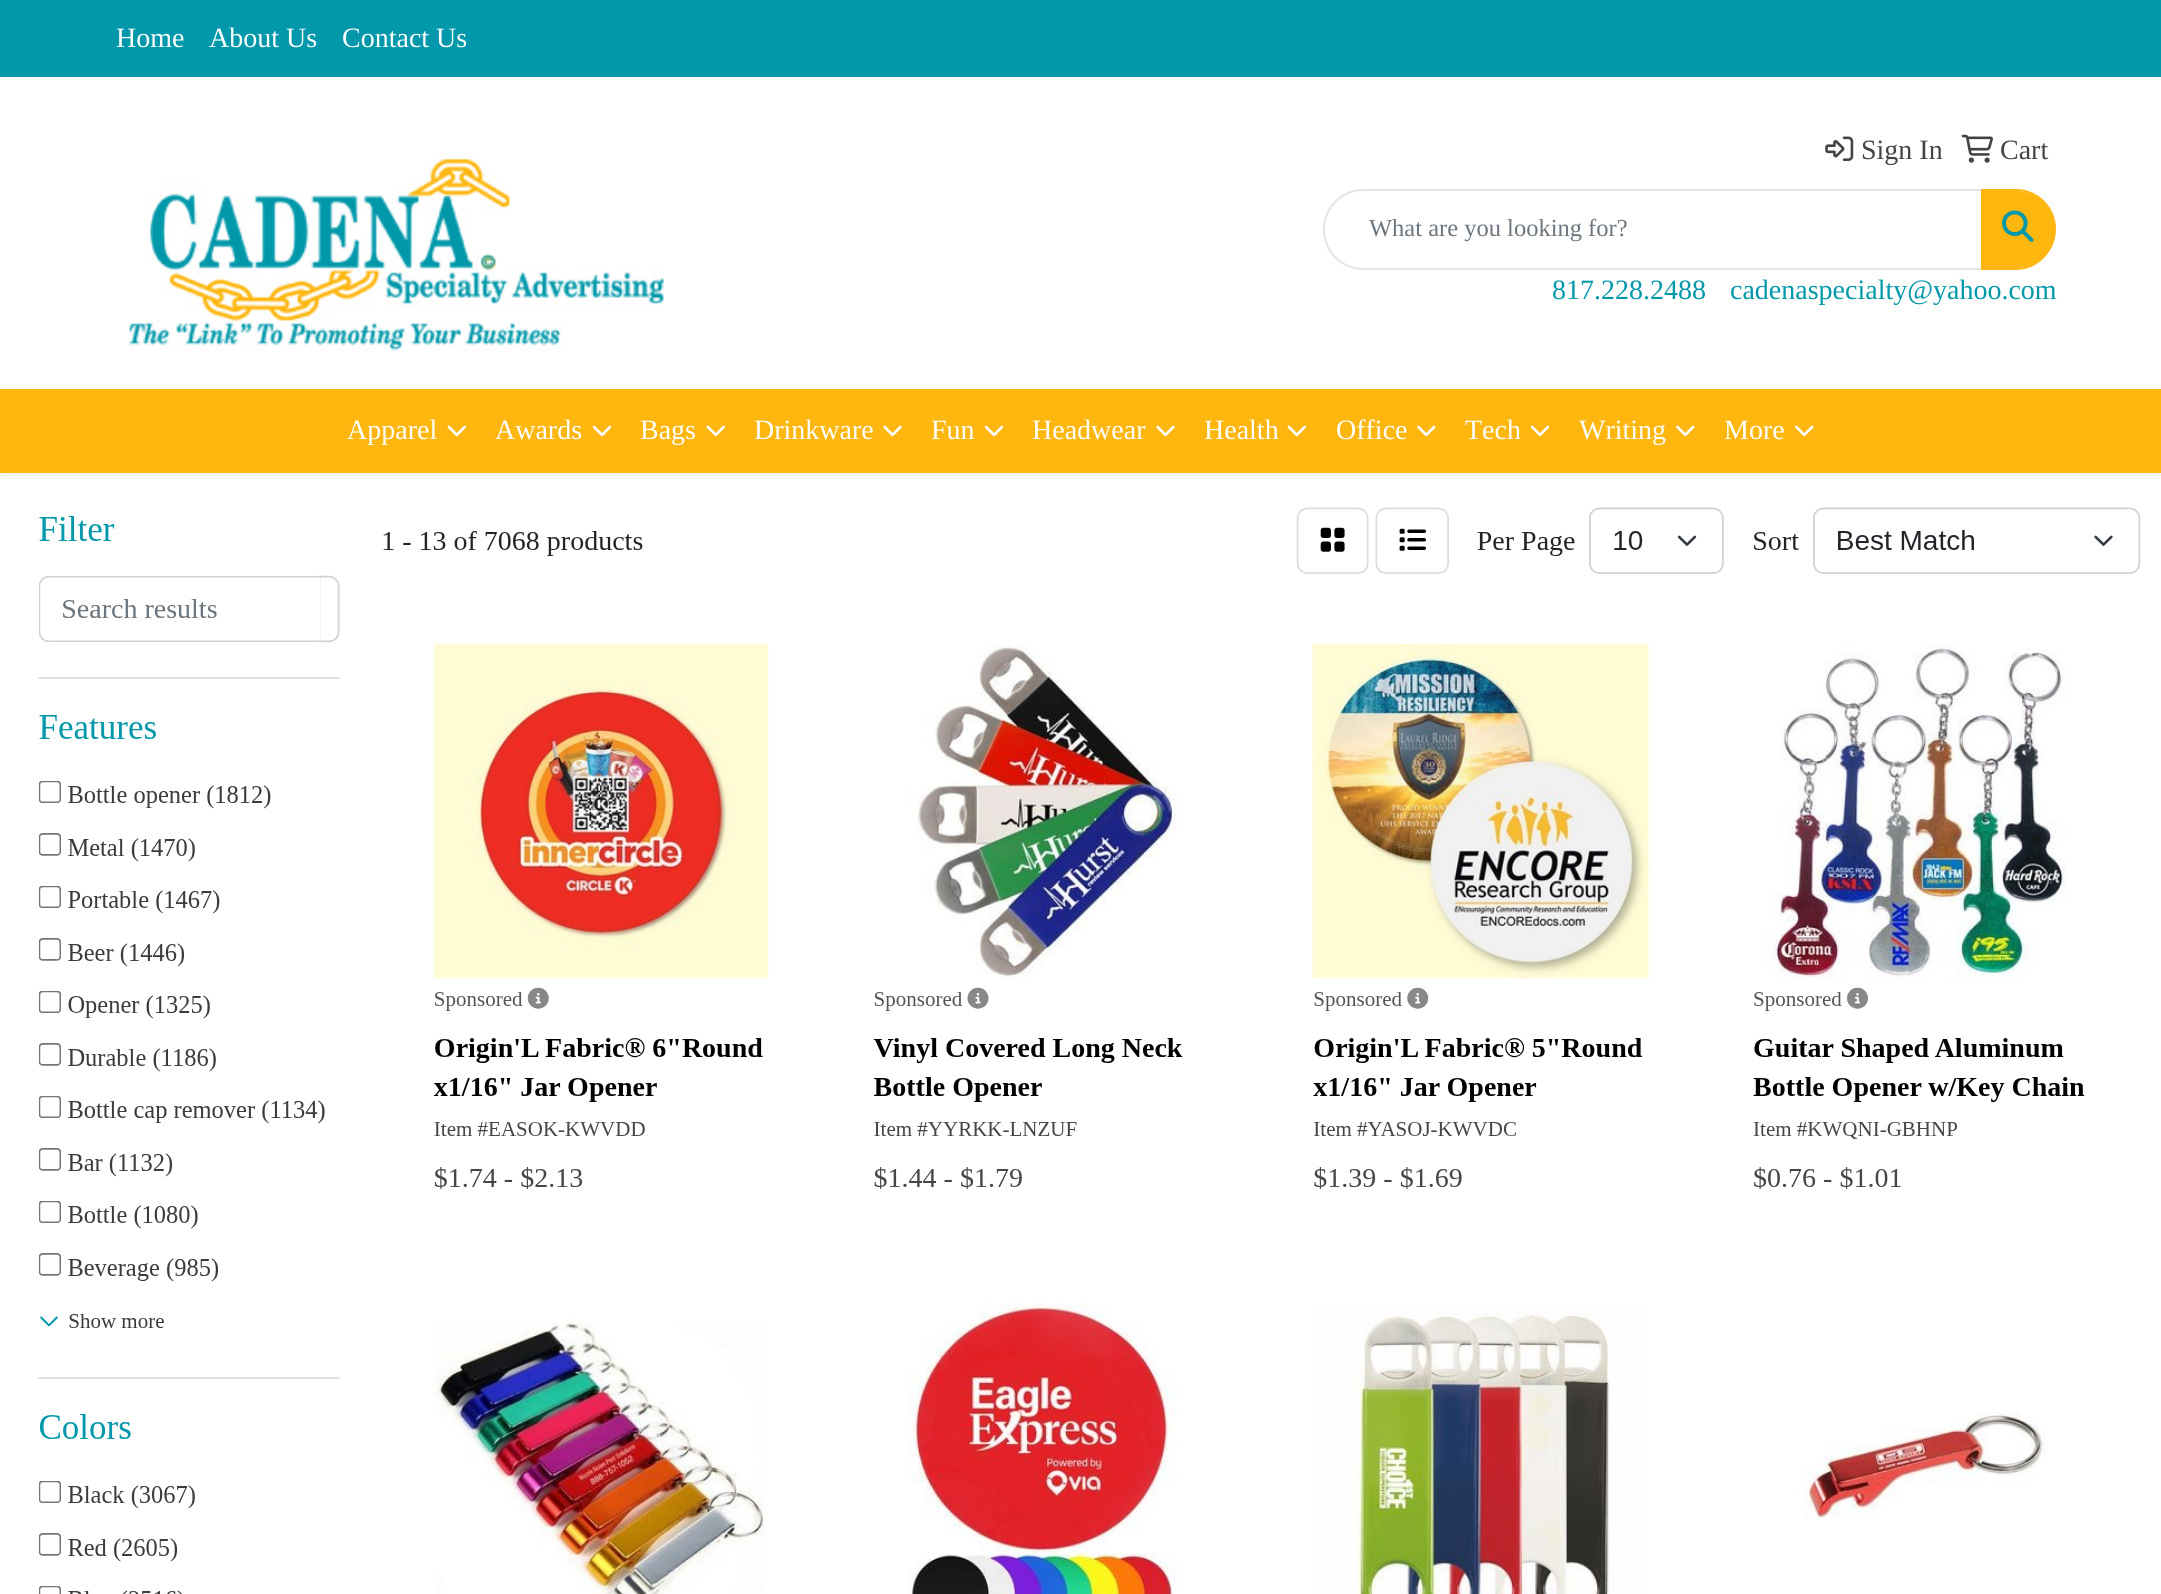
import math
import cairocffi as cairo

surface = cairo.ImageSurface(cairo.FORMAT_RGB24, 2161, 1594)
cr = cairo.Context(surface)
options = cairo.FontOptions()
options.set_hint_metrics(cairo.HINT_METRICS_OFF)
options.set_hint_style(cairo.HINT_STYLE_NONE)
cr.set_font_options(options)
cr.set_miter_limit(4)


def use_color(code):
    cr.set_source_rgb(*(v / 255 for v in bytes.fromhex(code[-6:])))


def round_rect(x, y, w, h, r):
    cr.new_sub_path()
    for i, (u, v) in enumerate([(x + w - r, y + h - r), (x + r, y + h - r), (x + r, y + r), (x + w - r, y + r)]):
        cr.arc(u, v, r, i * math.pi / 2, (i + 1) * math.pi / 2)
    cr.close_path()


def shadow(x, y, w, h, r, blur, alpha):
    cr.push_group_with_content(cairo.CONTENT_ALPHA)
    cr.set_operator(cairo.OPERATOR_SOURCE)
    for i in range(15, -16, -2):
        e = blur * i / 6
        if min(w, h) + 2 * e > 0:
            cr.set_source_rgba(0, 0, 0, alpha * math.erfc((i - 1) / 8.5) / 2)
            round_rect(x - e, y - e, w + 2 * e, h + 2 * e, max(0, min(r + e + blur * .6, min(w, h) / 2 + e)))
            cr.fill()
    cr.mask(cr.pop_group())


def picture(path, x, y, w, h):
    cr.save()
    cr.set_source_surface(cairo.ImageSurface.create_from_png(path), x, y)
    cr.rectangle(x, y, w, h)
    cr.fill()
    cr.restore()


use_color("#ffffff")
cr.paint()
use_color("#0098aa")
cr.rectangle(0, 0, 2161, 77)
cr.fill()
cr.select_font_face("Liberation Serif")
cr.set_font_size(28)
use_color("#ffffff")
cr.move_to(116, 47)
cr.show_text("Home")
cr.move_to(209, 47)
cr.show_text("About Us")
cr.move_to(342, 47)
cr.show_text("Contact Us")
picture("img1.png", 129, 158, 535, 193)
picture("img2.png", 1825, 136, 29, 25)
use_color("#444444")
cr.move_to(1861, 159)
cr.show_text("Sign In")
picture("img3.png", 1961, 134, 32, 29)
cr.move_to(2000, 159)
cr.show_text("Cart")
cr.new_path()
cr.move_to(1363.5, 190)
cr.line_to(1982, 190)
cr.line_to(1982, 269)
cr.line_to(1363.5, 269)
cr.curve_to(1341.5, 269, 1324, 251.5, 1324, 229.5)
cr.curve_to(1324, 207.5, 1341.5, 190, 1363.5, 190)
cr.close_path()
use_color("#e4e4e4")
cr.stroke()
cr.set_font_size(24.5)
use_color("#6c757d")
cr.move_to(1369, 236)
cr.show_text("What are you looking for?")
use_color("#ffb60f")
cr.new_path()
cr.move_to(1981, 191)
cr.line_to(2016.5, 191)
cr.curve_to(2038, 191, 2055, 208, 2055, 229.5)
cr.curve_to(2055, 251, 2038, 268, 2016.5, 268)
cr.line_to(1981, 268)
cr.close_path()
cr.fill()
cr.set_fill_rule(cairo.FILL_RULE_EVEN_ODD)
cr.new_path()
cr.move_to(1981, 189)
cr.line_to(2016, 189)
cr.curve_to(2038, 189, 2056, 207, 2056, 229)
cr.curve_to(2056, 251, 2038, 270, 2016, 270)
cr.line_to(1981, 270)
cr.close_path()
cr.move_to(1981, 191)
cr.line_to(2016, 191)
cr.curve_to(2037, 191, 2054, 208, 2054, 229)
cr.curve_to(2054, 251, 2037, 268, 2016, 268)
cr.line_to(1981, 268)
cr.close_path()
cr.fill()
picture("img4.png", 2002, 210, 32, 32)
cr.set_font_size(28)
use_color("#0098aa")
cr.move_to(1552, 299)
cr.show_text("817.228.2488")
cr.move_to(1730, 299)
cr.show_text("cadenaspecialty@yahoo.com")
use_color("#000000")
shadow(0, 392, 2161, 84, 0, 3.5, 0.07)
use_color("#ffb60f")
cr.rectangle(0, 389, 2161, 84)
cr.fill()
use_color("#ffffff")
cr.move_to(347, 439)
cr.show_text("Apparel")
picture("img5.png", 447, 425, 19, 12)
cr.move_to(495, 439)
cr.show_text("Awards")
picture("img6.png", 592, 425, 20, 12)
cr.move_to(640, 439)
cr.show_text("Bags")
picture("img5.png", 706, 425, 19, 12)
cr.move_to(754, 439)
cr.show_text("Drinkware")
picture("img7.png", 883, 425, 19, 12)
cr.move_to(931, 439)
cr.show_text("Fun")
picture("img6.png", 984, 425, 20, 12)
cr.move_to(1032, 439)
cr.show_text("Headwear")
picture("img7.png", 1156, 425, 19, 12)
cr.move_to(1204, 439)
cr.show_text("Health")
picture("img5.png", 1287, 425, 19, 12)
cr.move_to(1336, 439)
cr.show_text("Office")
picture("img8.png", 1417, 425, 19, 12)
cr.move_to(1465, 439)
cr.show_text("Tech")
picture("img6.png", 1530, 425, 20, 12)
cr.move_to(1579, 439)
cr.show_text("Writing")
picture("img8.png", 1676, 425, 19, 12)
cr.move_to(1724, 439)
cr.show_text("More")
picture("img8.png", 1795, 425, 19, 12)
picture("img9.png", 38, 507, 2103, 1087)
surface.write_to_png("result.png")
